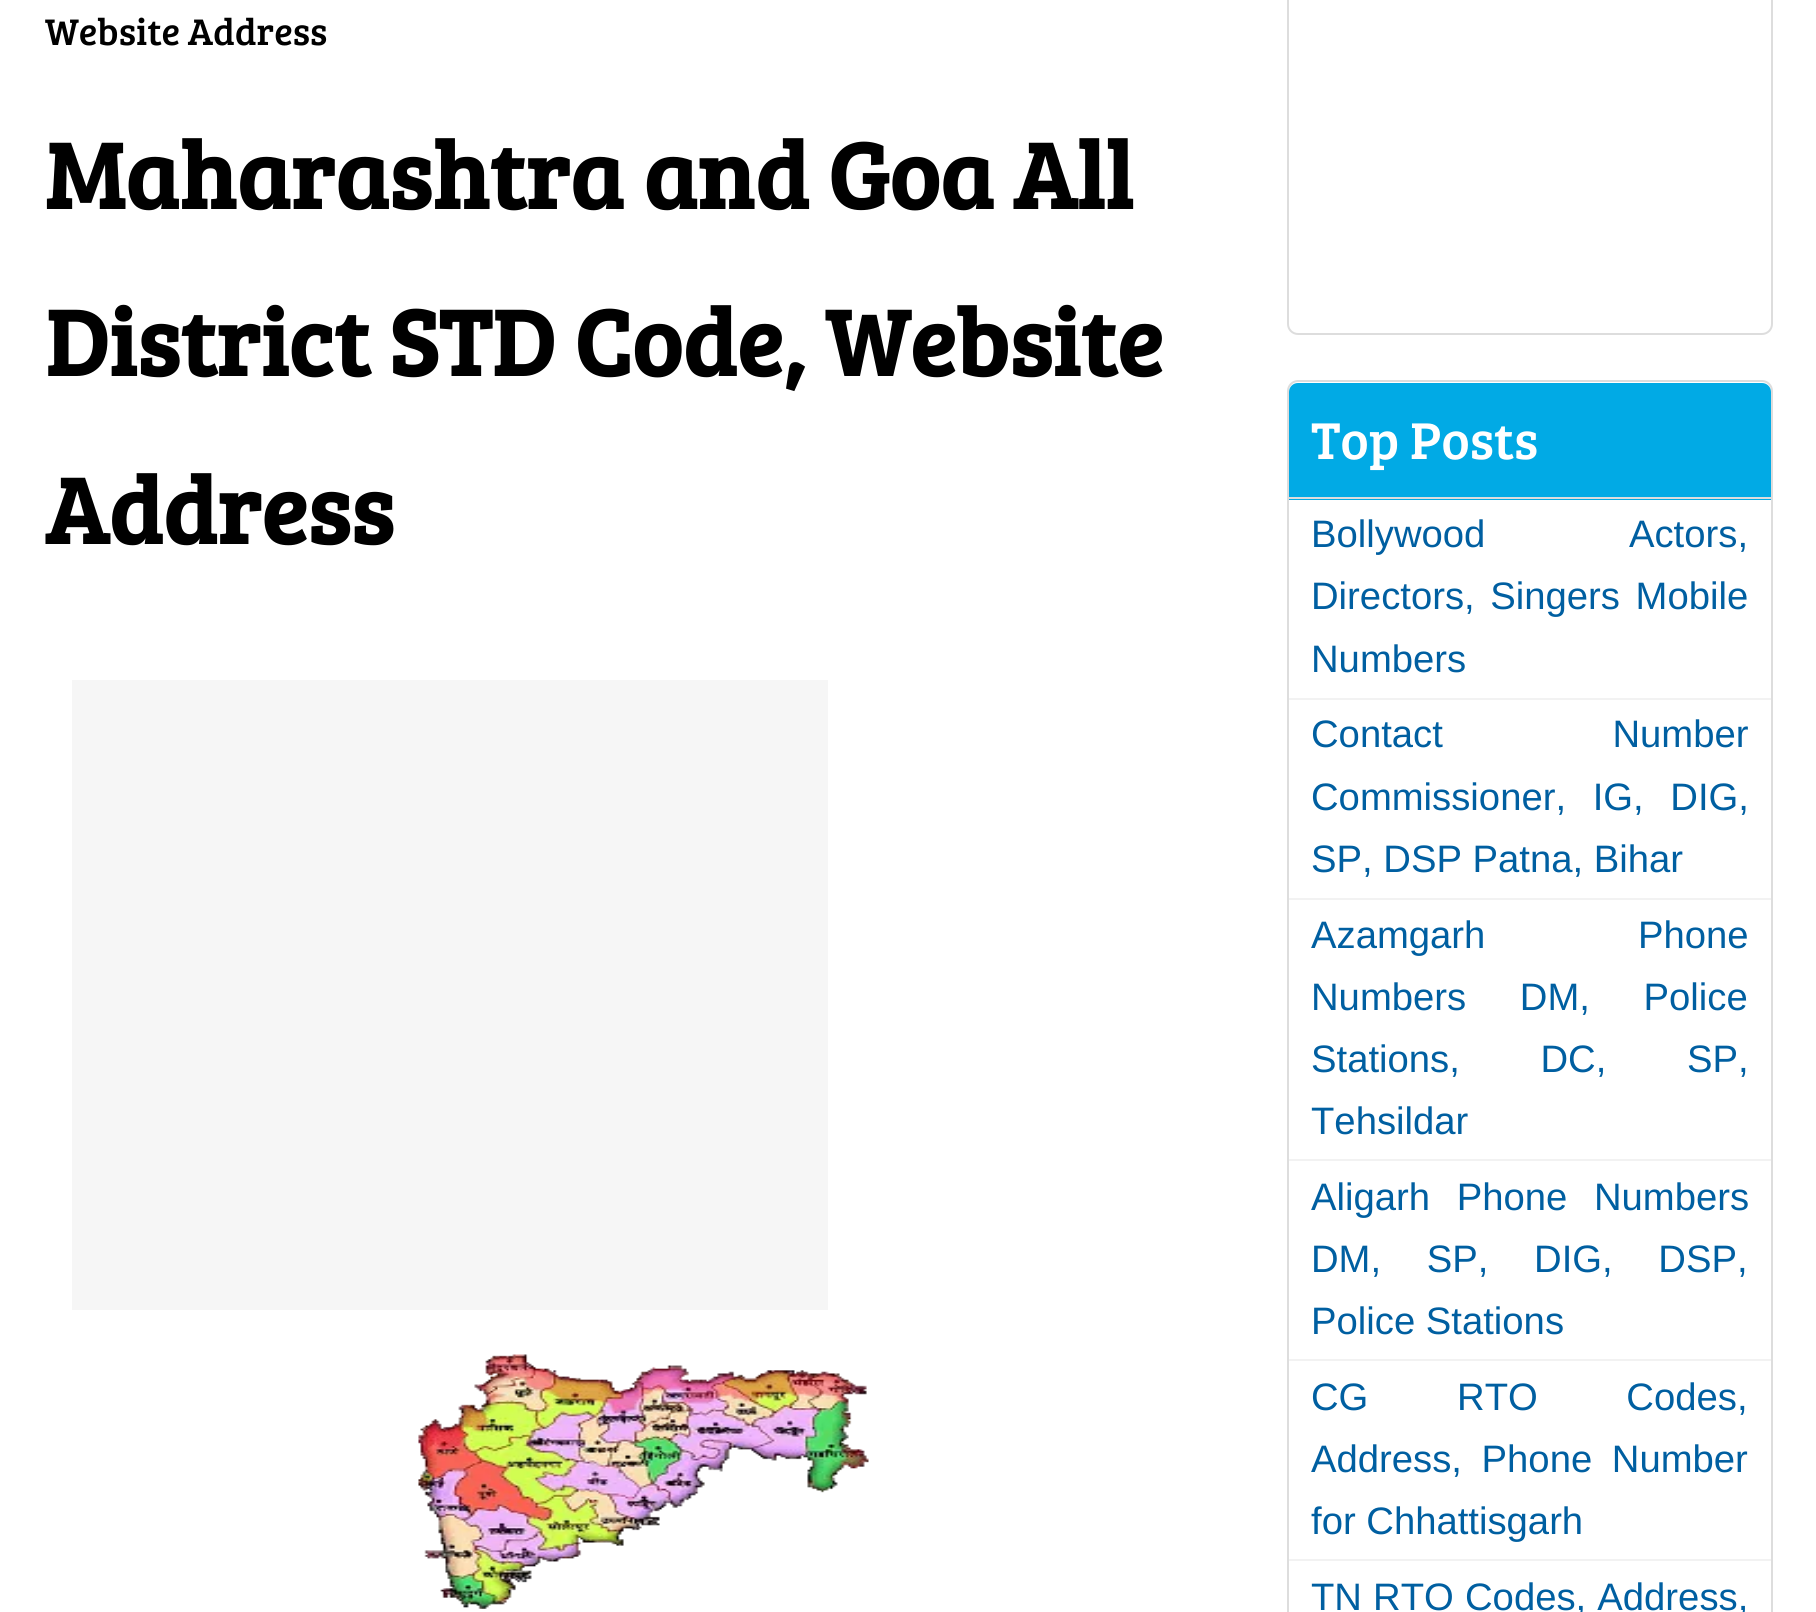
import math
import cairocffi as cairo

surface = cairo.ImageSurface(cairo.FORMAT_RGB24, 1816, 1612)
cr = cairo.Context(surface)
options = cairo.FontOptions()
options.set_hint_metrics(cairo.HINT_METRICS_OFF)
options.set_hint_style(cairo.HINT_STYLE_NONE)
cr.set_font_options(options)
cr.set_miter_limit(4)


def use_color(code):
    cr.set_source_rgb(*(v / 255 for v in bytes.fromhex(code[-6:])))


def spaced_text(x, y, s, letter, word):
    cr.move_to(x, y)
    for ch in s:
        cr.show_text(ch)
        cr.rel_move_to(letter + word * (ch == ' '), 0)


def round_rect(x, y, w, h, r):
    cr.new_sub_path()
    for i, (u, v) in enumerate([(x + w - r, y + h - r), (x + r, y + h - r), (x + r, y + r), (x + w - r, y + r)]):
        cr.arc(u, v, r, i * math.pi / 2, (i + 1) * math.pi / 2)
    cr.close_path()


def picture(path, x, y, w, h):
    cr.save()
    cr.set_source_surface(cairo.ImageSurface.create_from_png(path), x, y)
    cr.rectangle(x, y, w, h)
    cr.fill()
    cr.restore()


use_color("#ffffff")
cr.paint()
cr.select_font_face("Bree Serif")
cr.set_font_size(38.25)
use_color("#000000")
cr.move_to(45, 45)
cr.show_text("Website Address")
cr.select_font_face("Bree Serif", cairo.FONT_SLANT_NORMAL, cairo.FONT_WEIGHT_BOLD)
cr.set_font_size(95.6)
cr.move_to(45, 209)
cr.show_text("Maharashtra and Goa All")
cr.move_to(45, 376)
cr.show_text("District STD Code, Website")
cr.move_to(45, 544)
cr.show_text("Address")
use_color("#f6f6f6")
cr.rectangle(72, 680, 756, 630)
cr.fill()
picture("img1.png", 418, 1354, 451, 255)
round_rect(1288, -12, 484, 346, 10)
use_color("#dddddd")
cr.stroke()
round_rect(1288, 381, 484, 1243, 10)
cr.stroke()
use_color("#01aae5")
cr.new_path()
cr.move_to(1298, 383)
cr.line_to(1762, 383)
cr.curve_to(1767, 383, 1771, 387, 1771, 392)
cr.line_to(1771, 500)
cr.line_to(1289, 500)
cr.line_to(1289, 392)
cr.curve_to(1289, 387, 1293, 383, 1298, 383)
cr.close_path()
cr.fill()
use_color("#dddddd")
cr.rectangle(1289, 497, 482, 2)
cr.fill()
cr.select_font_face("Bree Serif")
cr.set_font_size(53.5)
use_color("#ffffff")
cr.move_to(1311, 459)
cr.show_text("Top Posts")
use_color("#f2f2f2")
cr.rectangle(1289, 698, 482, 2)
cr.fill()
cr.select_font_face("Liberation Sans")
cr.set_font_size(38.25)
use_color("#005fa1")
spaced_text(1311, 547, "Bollywood Actors,", 0, 133)
spaced_text(1311, 609, "Directors, Singers Mobile", 0, 5)
cr.move_to(1311, 672)
cr.show_text("Numbers")
use_color("#f2f2f2")
cr.rectangle(1289, 898, 482, 2)
cr.fill()
use_color("#005fa1")
spaced_text(1311, 747, "Contact Number", 0, 159)
spaced_text(1311, 810, "Commissioner, IG, DIG,", 0, 16)
cr.move_to(1311, 872)
cr.show_text("SP, DSP Patna, Bihar")
use_color("#f2f2f2")
cr.rectangle(1289, 1159, 482, 2)
cr.fill()
use_color("#005fa1")
spaced_text(1311, 948, "Azamgarh Phone", 0, 142)
spaced_text(1311, 1010, "Numbers DM, Police", 0, 43)
spaced_text(1311, 1072, "Stations, DC, SP,", 0, 70)
cr.move_to(1311, 1134)
cr.show_text("Tehsildar")
use_color("#f2f2f2")
cr.rectangle(1289, 1359, 482, 2)
cr.fill()
use_color("#005fa1")
spaced_text(1311, 1210, "Aligarh Phone Numbers", 0, 16)
spaced_text(1311, 1272, "DM, SP, DIG, DSP,", 0, 35)
cr.move_to(1311, 1334)
cr.show_text("Police Stations")
use_color("#f2f2f2")
cr.rectangle(1289, 1559, 482, 2)
cr.fill()
use_color("#005fa1")
spaced_text(1311, 1410, "CG RTO Codes,", 0, 78)
spaced_text(1311, 1472, "Address, Phone Number", 0, 9)
cr.move_to(1311, 1534)
cr.show_text("for Chhattisgarh")
spaced_text(1311, 1610, "TN RTO Codes, Address,", 0, 0.5)
surface.write_to_png("result.png")
